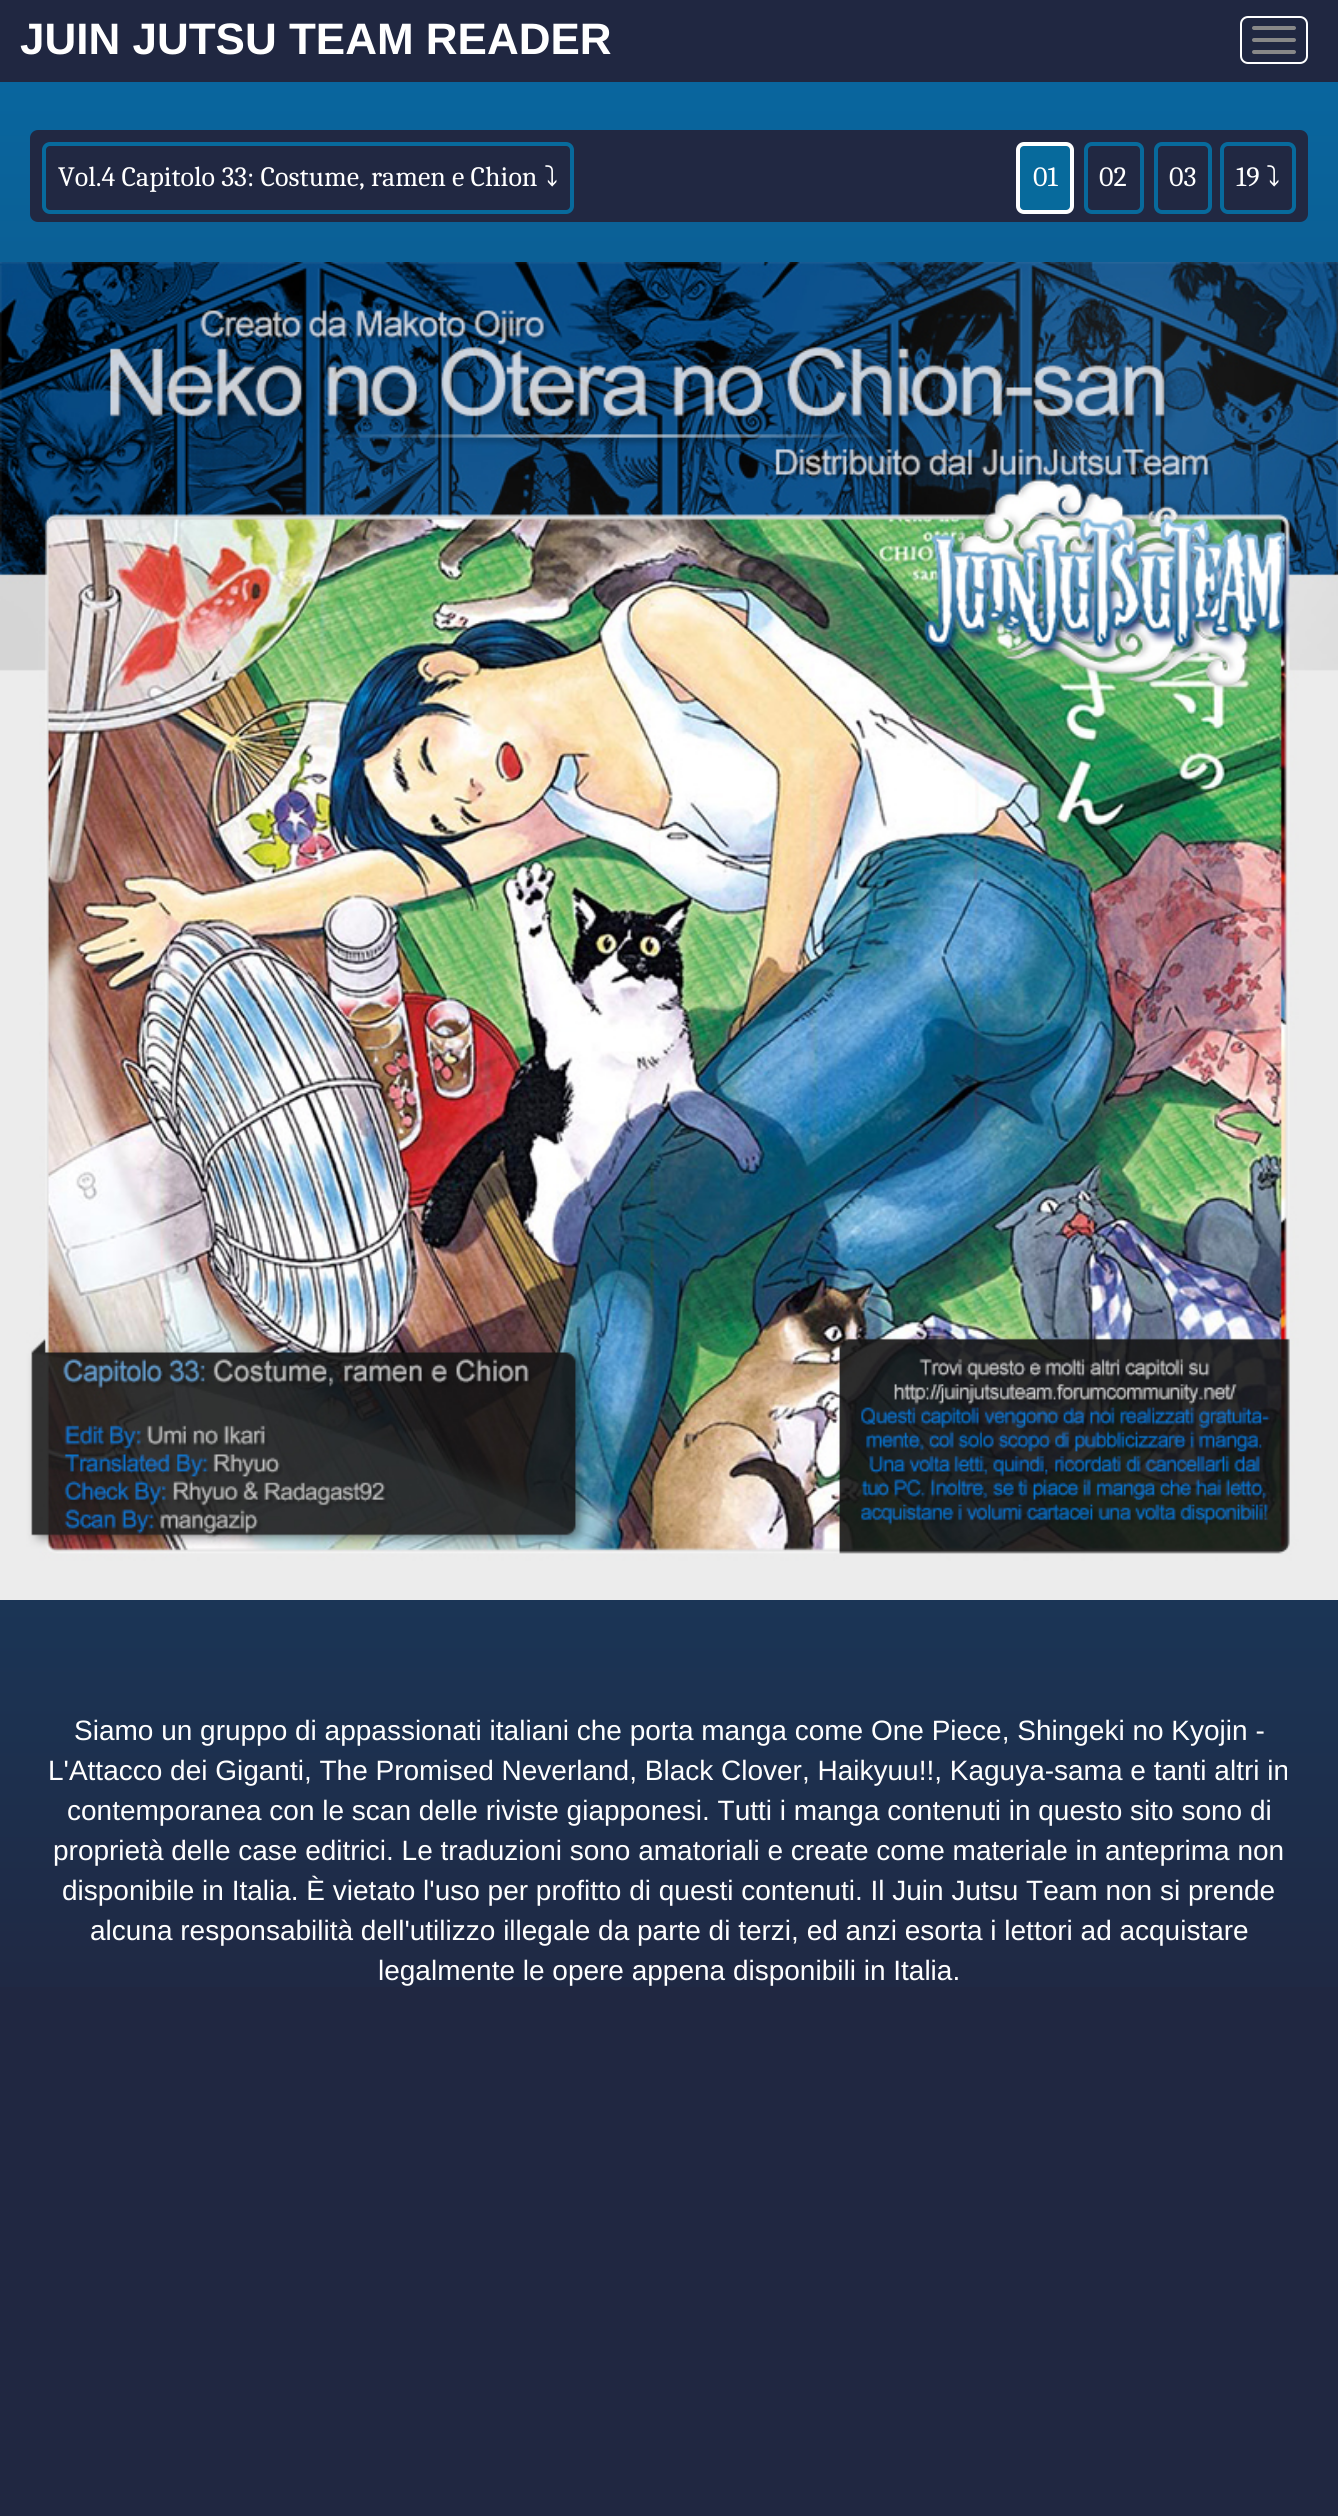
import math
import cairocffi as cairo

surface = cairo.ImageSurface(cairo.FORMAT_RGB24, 1338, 2516)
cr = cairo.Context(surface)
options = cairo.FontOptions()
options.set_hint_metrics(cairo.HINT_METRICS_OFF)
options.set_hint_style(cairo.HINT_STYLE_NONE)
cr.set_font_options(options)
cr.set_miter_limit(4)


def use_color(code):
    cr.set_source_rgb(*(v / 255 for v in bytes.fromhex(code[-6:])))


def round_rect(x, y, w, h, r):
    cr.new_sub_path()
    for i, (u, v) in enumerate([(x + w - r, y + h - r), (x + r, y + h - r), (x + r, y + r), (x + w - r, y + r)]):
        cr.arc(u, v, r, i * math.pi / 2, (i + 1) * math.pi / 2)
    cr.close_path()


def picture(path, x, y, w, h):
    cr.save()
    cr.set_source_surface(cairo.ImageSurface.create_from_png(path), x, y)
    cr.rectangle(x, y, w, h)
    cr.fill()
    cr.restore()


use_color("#202741")
cr.paint()
gradient = cairo.LinearGradient(669, 0, 669, 2040)
gradient.add_color_stop_rgba(0, 0.031, 0.408, 0.635, 1)
gradient.add_color_stop_rgba(1, 0.125, 0.153, 0.255, 1)
cr.set_source(gradient)
cr.rectangle(0, 82, 1338, 1905)
cr.fill()
cr.select_font_face("Liberation Sans", cairo.FONT_SLANT_NORMAL, cairo.FONT_WEIGHT_BOLD)
cr.set_font_size(44)
use_color("#ffffff")
cr.move_to(20, 54)
cr.show_text("JUIN JUTSU TEAM READER")
round_rect(1241, 17, 66, 46, 7)
cr.stroke()
use_color("#888888")
round_rect(1252, 26, 44, 4, 2)
cr.fill()
round_rect(1252, 38, 44, 4, 2)
cr.fill()
round_rect(1252, 50, 44, 4, 2)
cr.fill()
use_color("#212842")
round_rect(30, 130, 1278, 92, 8)
cr.fill()
round_rect(44, 144, 528, 68, 6)
use_color("#076a9c")
cr.set_line_width(4)
cr.stroke()
cr.select_font_face("Caladea")
cr.set_font_size(28)
use_color("#ffffff")
cr.move_to(58, 186)
cr.show_text("Vol.4 Capitolo 33: Costume, ramen e Chion")
cr.select_font_face("IPAGothic")
cr.move_to(544, 186)
cr.show_text("⤵")
use_color("#076a9c")
round_rect(1018, 144, 54, 68, 6)
cr.fill_preserve()
use_color("#ffffff")
cr.stroke()
cr.select_font_face("Caladea")
cr.move_to(1033, 186)
cr.show_text("01")
round_rect(1086, 144, 56, 68, 6)
use_color("#076a9c")
cr.stroke()
use_color("#ffffff")
cr.move_to(1099, 186)
cr.show_text("02")
round_rect(1156, 144, 54, 68, 6)
use_color("#076a9c")
cr.stroke()
use_color("#ffffff")
cr.move_to(1169, 186)
cr.show_text("03")
round_rect(1222, 144, 72, 68, 6)
use_color("#076a9c")
cr.stroke()
use_color("#ffffff")
cr.move_to(1236, 186)
cr.show_text("19")
cr.select_font_face("IPAGothic")
cr.move_to(1266, 186)
cr.show_text("⤵")
picture("img1.png", 0, 262, 1338, 1338)
cr.select_font_face("Liberation Sans")
cr.move_to(74, 1740)
cr.show_text("Siamo un gruppo di appassionati italiani che porta manga come One Piece, Shingeki no Kyojin -")
cr.move_to(48, 1780)
cr.show_text("L'Attacco dei Giganti, The Promised Neverland, Black Clover, Haikyuu!!, Kaguya-sama e tanti altri in")
cr.move_to(67, 1820)
cr.show_text("contemporanea con le scan delle riviste giapponesi. Tutti i manga contenuti in questo sito sono di")
cr.move_to(53, 1860)
cr.show_text("proprietà delle case editrici. Le traduzioni sono amatoriali e create come materiale in anteprima non")
cr.move_to(62, 1900)
cr.show_text("disponibile in Italia. È vietato l'uso per profitto di questi contenuti. Il Juin Jutsu Team non si prende")
cr.move_to(90, 1940)
cr.show_text("alcuna responsabilità dell'utilizzo illegale da parte di terzi, ed anzi esorta i lettori ad acquistare")
cr.move_to(378, 1980)
cr.show_text("legalmente le opere appena disponibili in Italia.")
surface.write_to_png("result.png")
